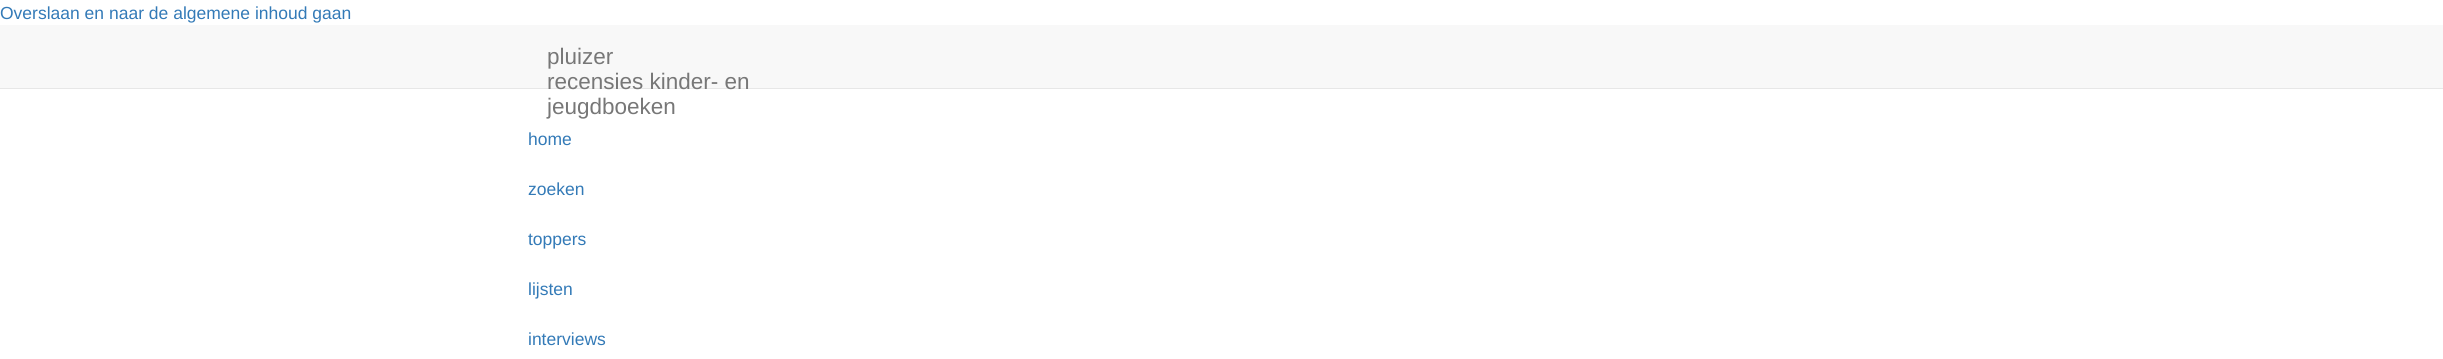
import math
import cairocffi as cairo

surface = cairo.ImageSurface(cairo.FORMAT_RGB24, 2443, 359)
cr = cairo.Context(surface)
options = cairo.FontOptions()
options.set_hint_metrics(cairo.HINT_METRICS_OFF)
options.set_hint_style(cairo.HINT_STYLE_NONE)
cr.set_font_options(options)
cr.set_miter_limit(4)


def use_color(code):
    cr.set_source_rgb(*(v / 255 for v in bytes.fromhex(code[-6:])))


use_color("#ffffff")
cr.paint()
cr.select_font_face("Liberation Sans")
cr.set_font_size(17.5)
use_color("#337ab7")
cr.move_to(0, 19)
cr.show_text("Overslaan en naar de algemene inhoud gaan")
use_color("#f8f8f8")
cr.rectangle(0, 25, 2443, 63)
cr.fill()
use_color("#e7e7e7")
cr.rectangle(0, 88, 2443, 1)
cr.fill()
cr.set_font_size(22.5)
use_color("#777777")
cr.move_to(547, 64)
cr.show_text("pluizer")
cr.move_to(547, 89)
cr.show_text("recensies kinder- en")
cr.move_to(547, 114)
cr.show_text("jeugdboeken")
cr.set_font_size(17.5)
use_color("#337ab7")
cr.move_to(528, 145)
cr.show_text("home")
cr.move_to(528, 195)
cr.show_text("zoeken")
cr.move_to(528, 245)
cr.show_text("toppers")
cr.move_to(528, 295)
cr.show_text("lijsten")
cr.move_to(528, 345)
cr.show_text("interviews")
surface.write_to_png("result.png")
